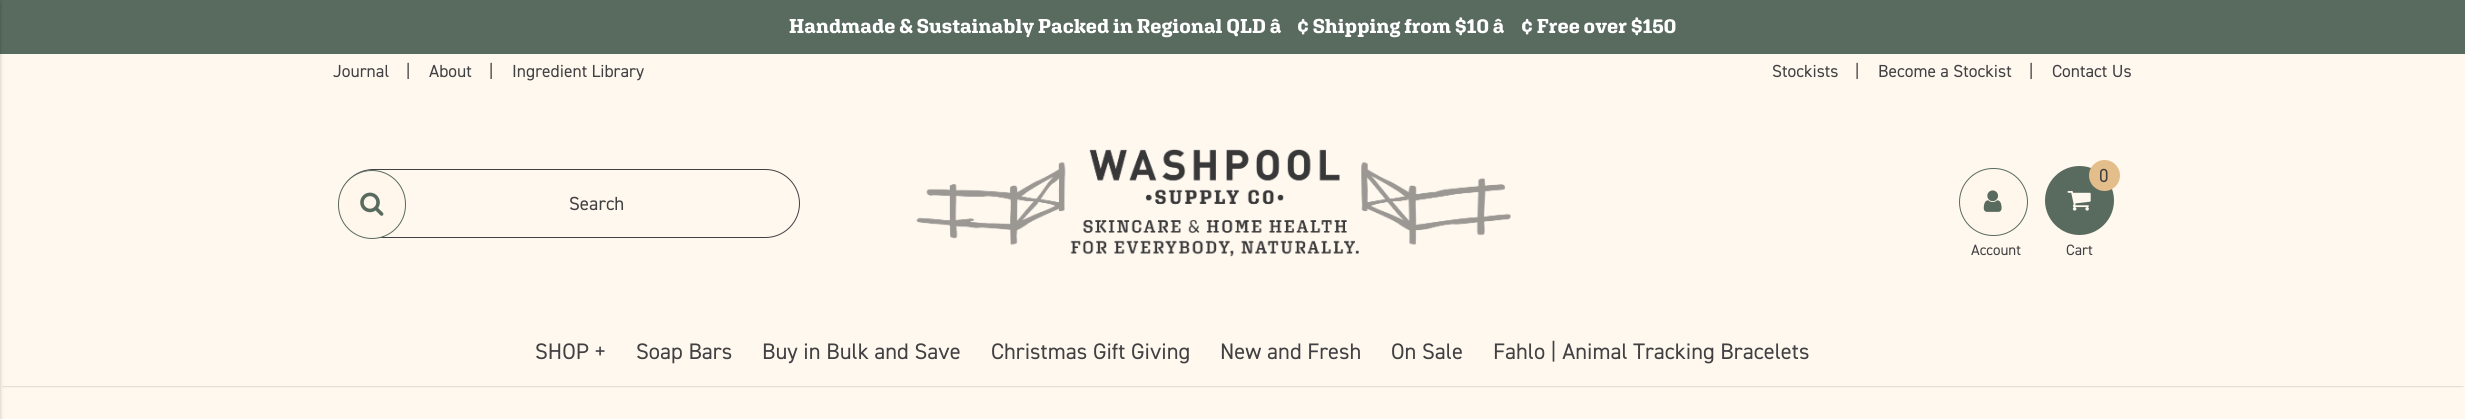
import math
import cairocffi as cairo

surface = cairo.ImageSurface(cairo.FORMAT_RGB24, 2465, 419)
cr = cairo.Context(surface)
options = cairo.FontOptions()
options.set_hint_metrics(cairo.HINT_METRICS_OFF)
options.set_hint_style(cairo.HINT_STYLE_NONE)
cr.set_font_options(options)
cr.set_miter_limit(4)


def use_color(code):
    cr.set_source_rgb(*(v / 255 for v in bytes.fromhex(code[-6:])))


def round_rect(x, y, w, h, r):
    cr.new_sub_path()
    for i, (u, v) in enumerate([(x + w - r, y + h - r), (x + r, y + h - r), (x + r, y + r), (x + w - r, y + r)]):
        cr.arc(u, v, r, i * math.pi / 2, (i + 1) * math.pi / 2)
    cr.close_path()


def shadow(x, y, w, h, r, blur, alpha):
    cr.push_group_with_content(cairo.CONTENT_ALPHA)
    cr.set_operator(cairo.OPERATOR_SOURCE)
    for i in range(15, -16, -2):
        e = blur * i / 6
        if min(w, h) + 2 * e > 0:
            cr.set_source_rgba(0, 0, 0, alpha * math.erfc((i - 1) / 8.5) / 2)
            round_rect(x - e, y - e, w + 2 * e, h + 2 * e, max(0, min(r + e + blur * .6, min(w, h) / 2 + e)))
            cr.fill()
    cr.mask(cr.pop_group())


def picture(path, x, y, w, h):
    cr.save()
    cr.set_source_surface(cairo.ImageSurface.create_from_png(path), x, y)
    cr.rectangle(x, y, w, h)
    cr.fill()
    cr.restore()


use_color("#fff8ef")
cr.paint()
use_color("#596a5f")
cr.rectangle(0, 0, 2465, 54)
cr.fill()
use_color("#000000")
shadow(-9, 1, 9, 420, 0, 3, 0.12)
shadow(-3, 3, 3, 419, 0, 1, 0.14)
cr.select_font_face("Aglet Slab", cairo.FONT_SLANT_NORMAL, cairo.FONT_WEIGHT_BOLD)
cr.set_font_size(20)
use_color("#ffffff")
cr.move_to(789, 33)
cr.show_text("Handmade & Sustainably Packed in Regional QLD â")
cr.move_to(1297, 33)
cr.show_text("¢ Shipping from $10 â")
cr.move_to(1521, 33)
cr.show_text("¢ Free over $150")
cr.select_font_face("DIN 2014")
cr.set_font_size(17.5)
use_color("#414042")
cr.move_to(333, 77)
cr.show_text("Journal")
cr.move_to(406, 77)
cr.show_text("|")
cr.move_to(429, 77)
cr.show_text("About")
cr.move_to(489, 77)
cr.show_text("|")
cr.move_to(512, 77)
cr.show_text("Ingredient Library")
cr.move_to(1772, 77)
cr.show_text("Stockists")
cr.move_to(1855, 77)
cr.show_text("|")
cr.move_to(1878, 77)
cr.show_text("Become a Stockist")
cr.move_to(2029, 77)
cr.show_text("|")
cr.move_to(2052, 77)
cr.show_text("Contact Us")
round_rect(339.5, 169.5, 460, 68, 34)
cr.set_line_width(1)
cr.stroke()
use_color("#fff7eb")
round_rect(338.5, 170.5, 67, 68, 33.5)
cr.fill_preserve()
use_color("#596a5f")
cr.stroke()
picture("img1.png", 360, 192, 24, 24)
cr.set_font_size(19)
use_color("#414042")
cr.move_to(569, 210)
cr.show_text("Search")
picture("img2.png", 916, 149, 595, 108)
use_color("#fff7eb")
round_rect(1959.5, 168.5, 68, 67, 33.5)
cr.fill_preserve()
use_color("#596a5f")
cr.stroke()
picture("img3.png", 1983, 190, 19, 22)
cr.set_font_size(15)
use_color("#414042")
cr.move_to(1971, 255)
cr.show_text("Account")
use_color("#596a5f")
cr.new_path()
cr.arc(2079.5, 200.5, 34.5, 0, 2 * math.pi)
cr.fill()
use_color("#e4be8a")
cr.arc(2104.5, 175.5, 15.5, 0, 2 * math.pi)
cr.fill()
cr.set_font_size(19)
use_color("#414042")
cr.move_to(2099, 182)
cr.show_text("0")
picture("img4.png", 2067, 191, 24, 20)
cr.set_font_size(15)
cr.move_to(2066, 255)
cr.show_text("Cart")
cr.save()
cr.rectangle(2, 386, 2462, 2)
cr.clip()
use_color("#333333")
shadow(3, 321, 2460, 65, 0, 1, 0.37)
cr.restore()
cr.set_font_size(22.5)
cr.move_to(535, 359)
cr.show_text("SHOP +")
cr.move_to(636, 359)
cr.show_text("Soap Bars")
cr.move_to(762, 359)
cr.show_text("Buy in Bulk and Save")
cr.move_to(991, 359)
cr.show_text("Christmas Gift Giving")
cr.move_to(1220, 359)
cr.show_text("New and Fresh")
cr.move_to(1391, 359)
cr.show_text("On Sale")
cr.move_to(1493, 359)
cr.show_text("Fahlo | Animal Tracking Bracelets")
surface.write_to_png("result.png")
